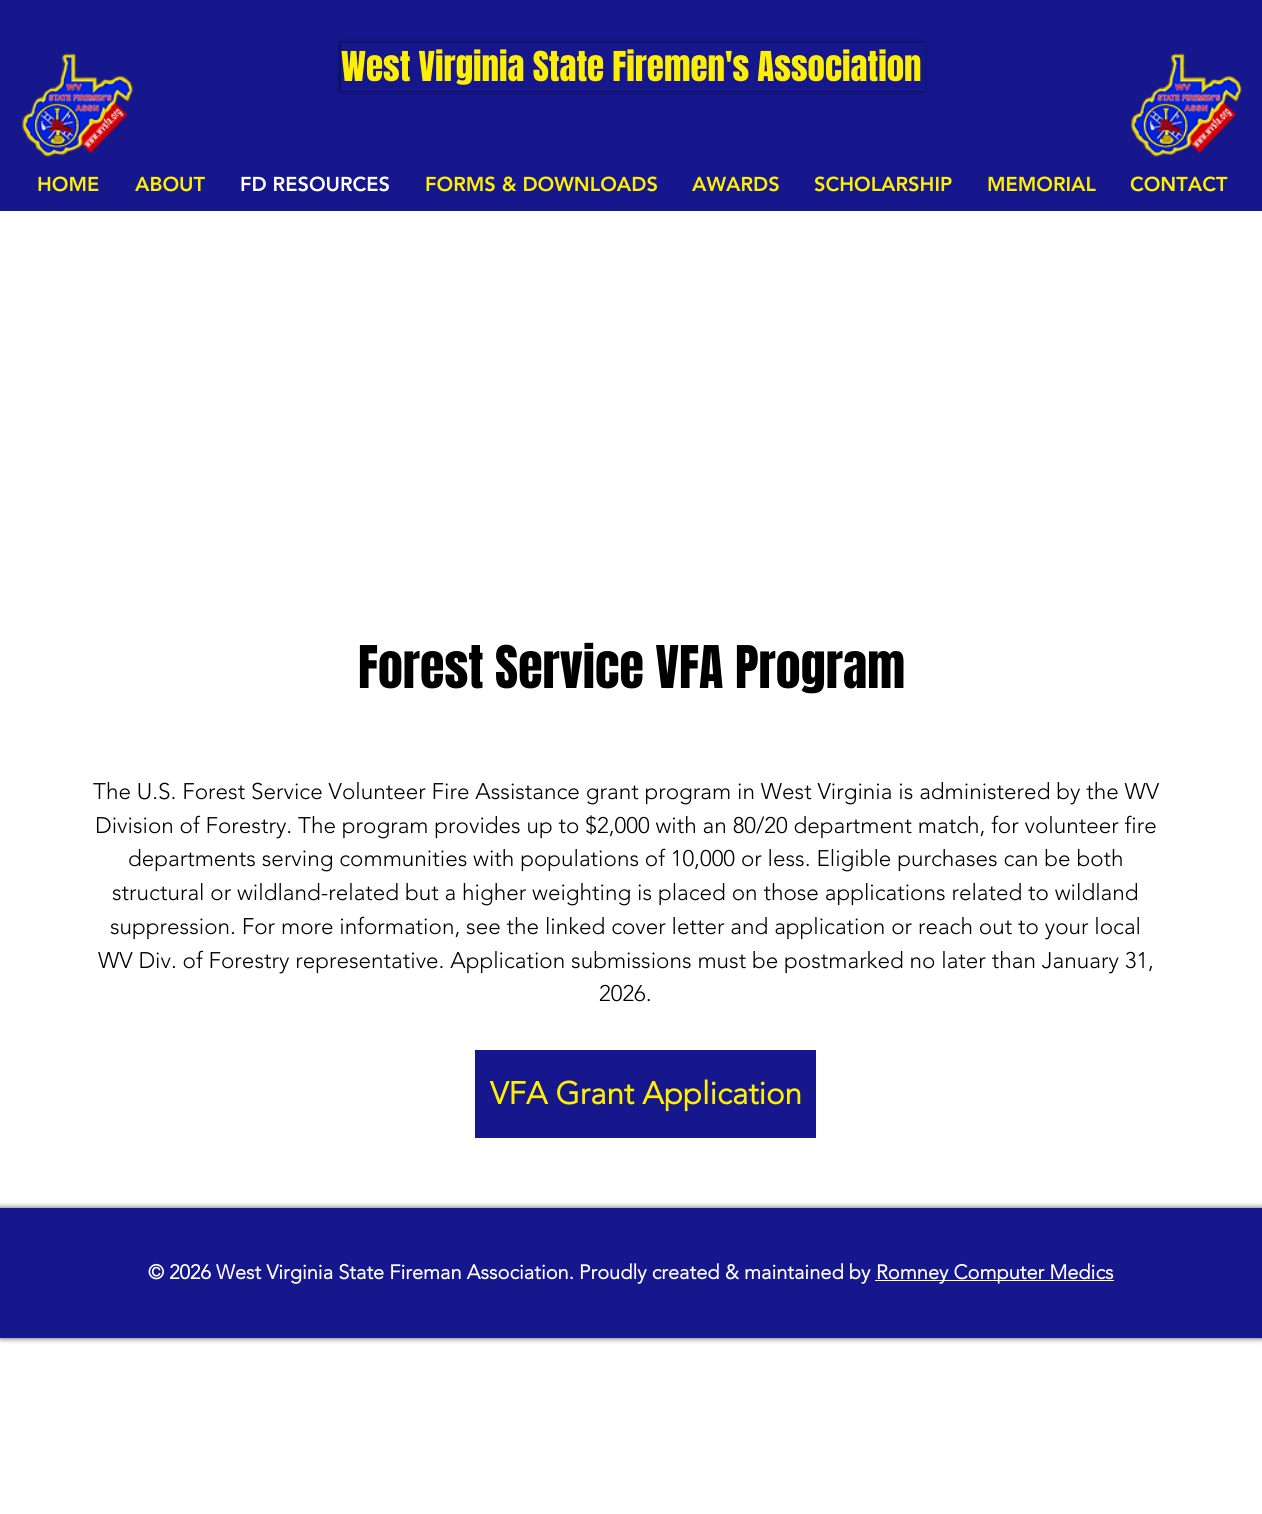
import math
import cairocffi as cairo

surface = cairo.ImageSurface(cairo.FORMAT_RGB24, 1262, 1514)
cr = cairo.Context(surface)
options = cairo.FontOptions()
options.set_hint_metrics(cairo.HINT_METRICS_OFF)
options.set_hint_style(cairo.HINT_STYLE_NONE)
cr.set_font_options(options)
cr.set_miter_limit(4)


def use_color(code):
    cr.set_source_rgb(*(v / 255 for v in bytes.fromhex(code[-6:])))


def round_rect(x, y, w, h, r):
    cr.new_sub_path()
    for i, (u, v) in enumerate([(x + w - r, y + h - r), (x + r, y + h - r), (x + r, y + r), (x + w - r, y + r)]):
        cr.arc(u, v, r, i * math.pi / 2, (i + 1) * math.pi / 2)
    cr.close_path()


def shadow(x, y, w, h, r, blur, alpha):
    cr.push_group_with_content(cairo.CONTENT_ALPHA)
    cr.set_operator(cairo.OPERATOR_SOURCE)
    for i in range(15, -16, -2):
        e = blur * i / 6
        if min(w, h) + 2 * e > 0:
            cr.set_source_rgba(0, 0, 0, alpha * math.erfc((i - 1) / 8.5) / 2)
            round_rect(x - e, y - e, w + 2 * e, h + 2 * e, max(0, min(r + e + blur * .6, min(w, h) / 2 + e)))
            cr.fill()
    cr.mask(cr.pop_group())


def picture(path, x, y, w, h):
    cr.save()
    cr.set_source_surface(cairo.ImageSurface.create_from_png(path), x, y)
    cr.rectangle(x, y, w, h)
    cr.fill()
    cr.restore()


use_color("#ffffff")
cr.paint()
use_color("#16178d")
cr.rectangle(0, 0, 1262, 211)
cr.fill()
picture("img1.png", 22, 53, 111, 104)
cr.save()
cr.set_fill_rule(cairo.FILL_RULE_EVEN_ODD)
cr.new_path()
cr.move_to(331, 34)
cr.line_to(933, 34)
cr.line_to(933, 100)
cr.line_to(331, 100)
cr.close_path()
cr.move_to(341, 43)
cr.line_to(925, 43)
cr.line_to(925, 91)
cr.line_to(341, 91)
cr.close_path()
cr.clip()
use_color("#000000")
shadow(340, 43, 584, 48, 0, 2.5, 0.6)
cr.restore()
cr.select_font_face("Anton")
cr.set_font_size(35)
use_color("#fff003")
cr.move_to(341, 81)
cr.show_text("West Virginia State Firemen's Association")
picture("img2.png", 1131, 53, 111, 104)
cr.select_font_face("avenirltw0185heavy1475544 Black")
cr.set_font_size(20)
cr.move_to(37, 191)
cr.show_text("HOME")
cr.move_to(135, 191)
cr.show_text("ABOUT")
use_color("#ffffff")
cr.move_to(240, 191)
cr.show_text("FD RESOURCES")
use_color("#fff003")
cr.move_to(425, 191)
cr.show_text("FORMS & DOWNLOADS")
cr.move_to(692, 191)
cr.show_text("AWARDS")
cr.move_to(814, 191)
cr.show_text("SCHOLARSHIP")
cr.move_to(987, 191)
cr.show_text("MEMORIAL")
cr.move_to(1130, 191)
cr.show_text("CONTACT")
cr.select_font_face("Anton")
cr.set_font_size(50)
use_color("#000000")
cr.move_to(358, 688)
cr.show_text("Forest Service VFA Program")
cr.select_font_face("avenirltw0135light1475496 Light")
cr.set_font_size(22.5)
cr.move_to(93, 799)
cr.show_text("The U.S. Forest Service Volunteer Fire Assistance grant program in West Virginia is administered by the WV")
cr.move_to(95, 833)
cr.show_text("Division of Forestry. The program provides up to $2,000 with an 80/20 department match, for volunteer fire")
cr.move_to(128, 866)
cr.show_text("departments serving communities with populations of 10,000 or less. Eligible purchases can be both")
cr.move_to(112, 900)
cr.show_text("structural or wildland-related but a higher weighting is placed on those applications related to wildland")
cr.move_to(110, 934)
cr.show_text("suppression. For more information, see the linked cover letter and application or reach out to your local")
cr.move_to(98, 968)
cr.show_text("WV Div. of Forestry representative. Application submissions must be postmarked no later than January 31,")
cr.move_to(599, 1001)
cr.show_text("2026.")
use_color("#16178d")
cr.rectangle(475, 1050, 341, 88)
cr.fill()
cr.select_font_face("avenirltw0135light1475496", cairo.FONT_SLANT_NORMAL, cairo.FONT_WEIGHT_BOLD)
cr.set_font_size(31.25)
use_color("#fff003")
cr.move_to(490, 1104)
cr.show_text("VFA Grant Application")
use_color("#000000")
shadow(0, 1208, 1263, 130, 0, 3, 0.7)
use_color("#16178d")
cr.rectangle(0, 1208, 1262, 130)
cr.fill()
cr.set_font_size(20)
use_color("#ffffff")
cr.move_to(148, 1279)
cr.show_text("© 2026 West Virginia State Fireman Association. Proudly created & maintained by")
cr.rectangle(875, 1280, 239, 1)
cr.fill()
cr.move_to(876, 1279)
cr.show_text("Romney Computer Medics")
surface.write_to_png("result.png")
